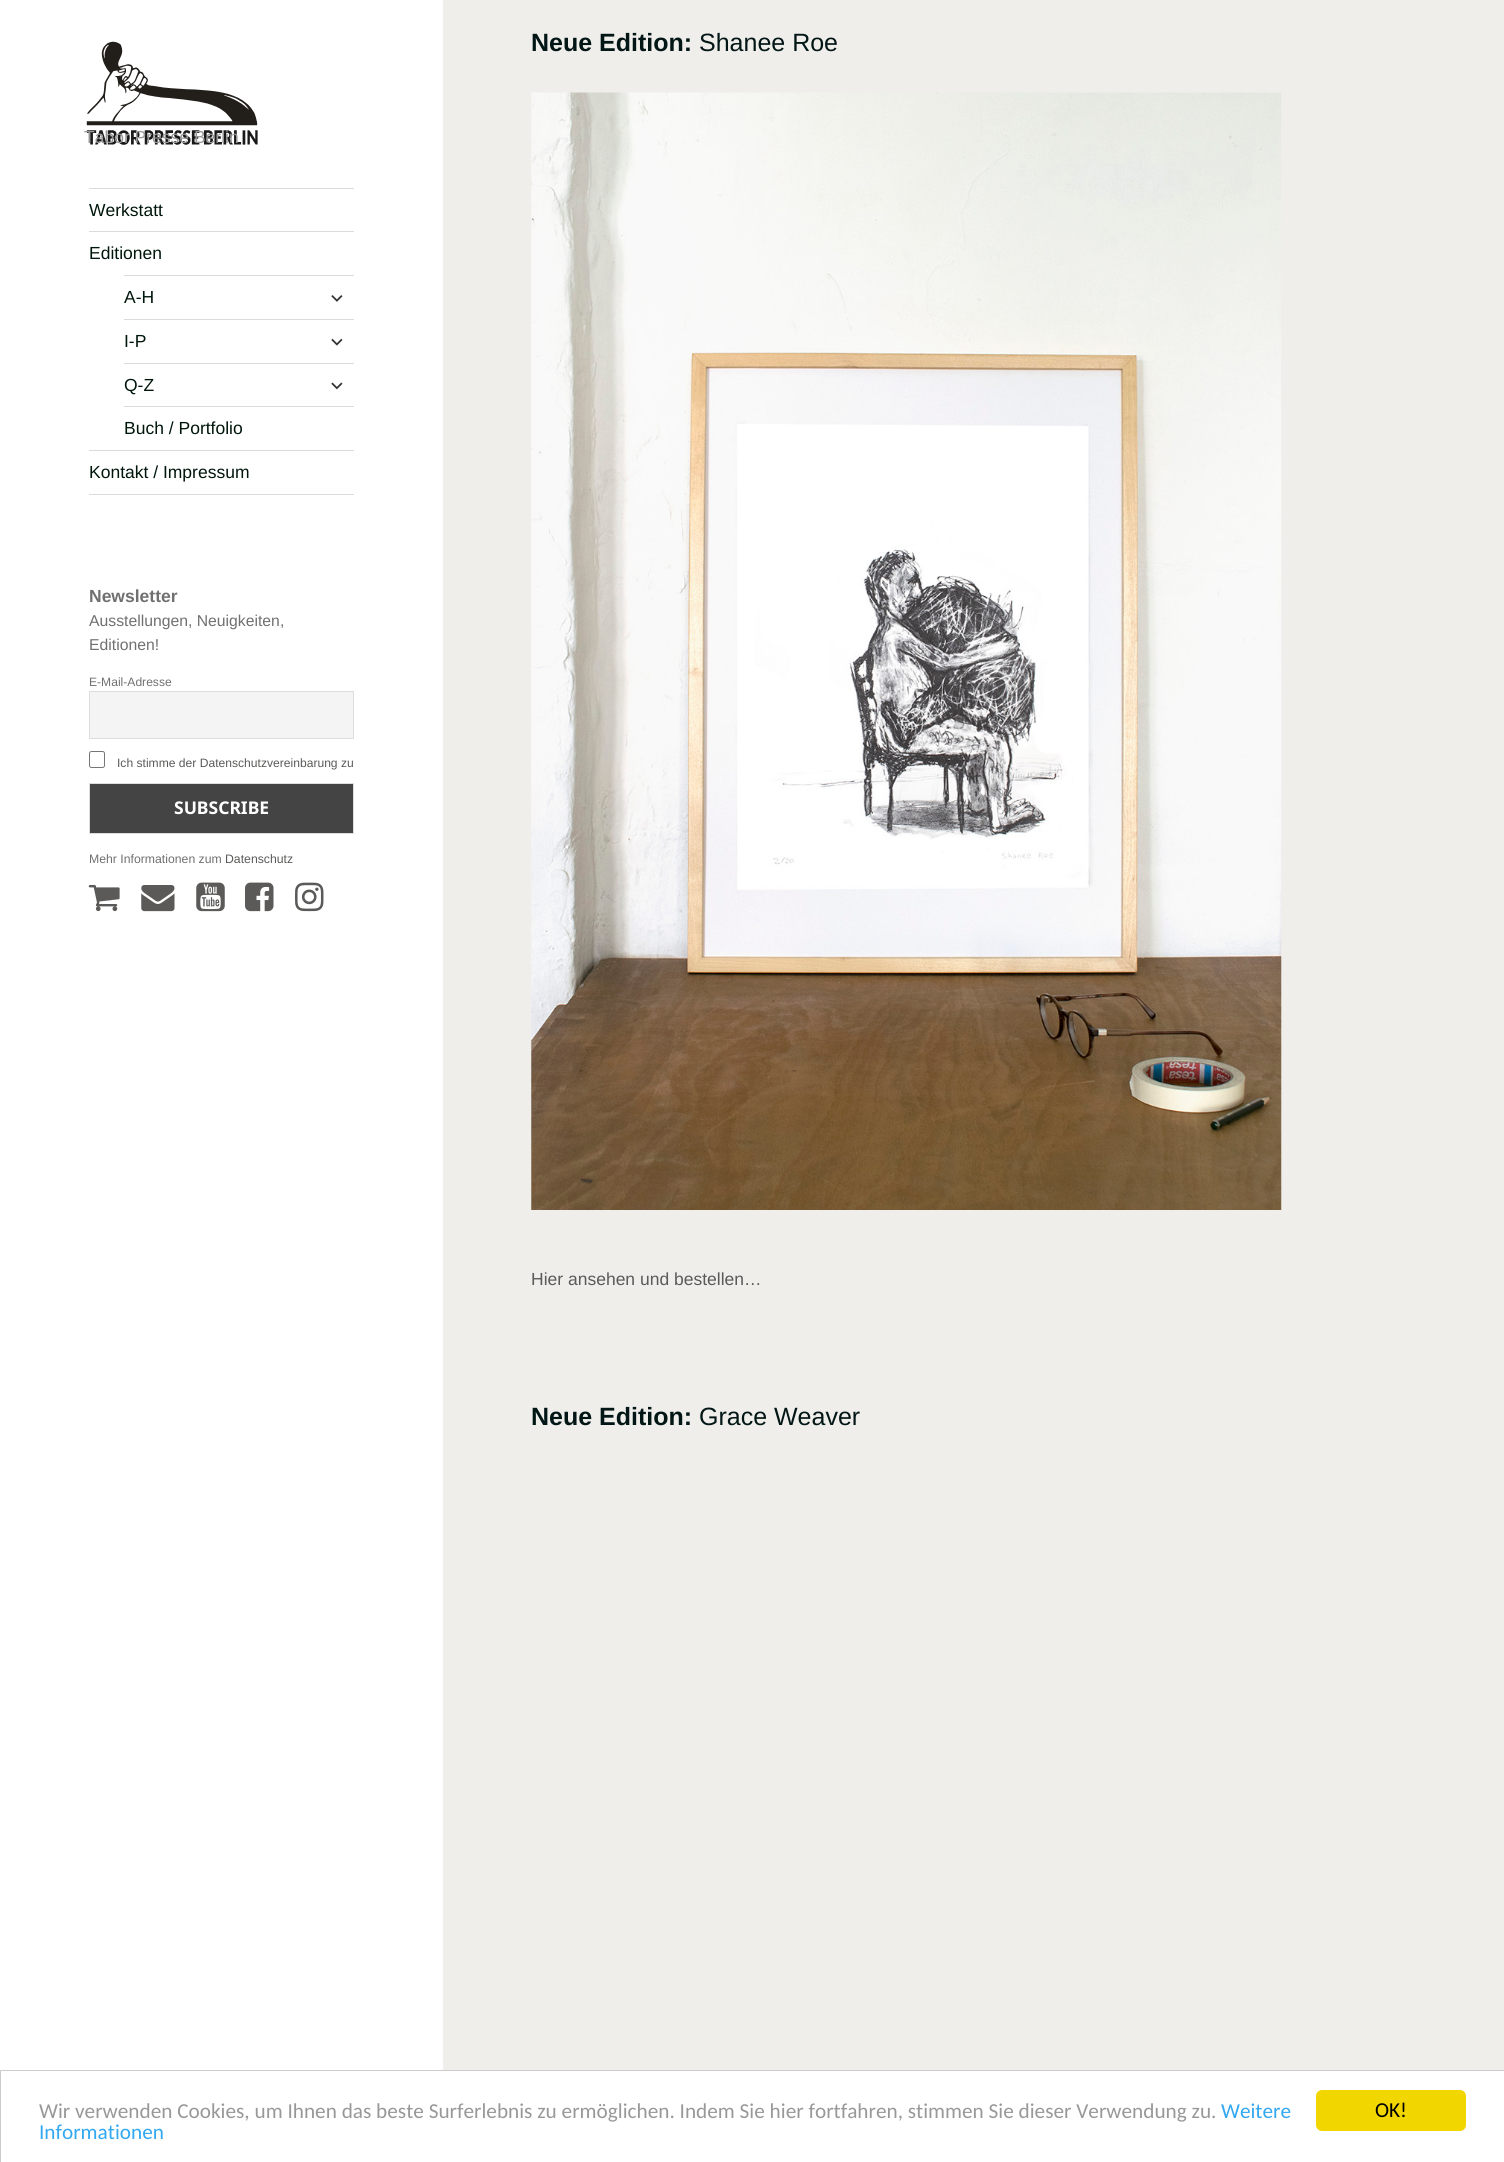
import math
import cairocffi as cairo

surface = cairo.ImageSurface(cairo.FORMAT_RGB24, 1504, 2162)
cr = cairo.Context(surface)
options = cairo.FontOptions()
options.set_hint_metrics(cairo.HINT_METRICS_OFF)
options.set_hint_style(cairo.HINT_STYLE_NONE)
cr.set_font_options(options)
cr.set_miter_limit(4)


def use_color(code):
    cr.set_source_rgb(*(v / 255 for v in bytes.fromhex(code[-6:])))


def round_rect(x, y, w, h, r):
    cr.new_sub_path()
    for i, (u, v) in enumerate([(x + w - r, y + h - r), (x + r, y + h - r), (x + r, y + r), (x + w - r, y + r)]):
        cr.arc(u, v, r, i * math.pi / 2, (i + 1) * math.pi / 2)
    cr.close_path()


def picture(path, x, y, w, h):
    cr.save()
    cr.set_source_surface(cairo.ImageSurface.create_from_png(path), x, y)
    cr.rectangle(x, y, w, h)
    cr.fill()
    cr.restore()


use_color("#efeeeb")
cr.paint()
use_color("#ffffff")
cr.rectangle(0, 0, 443, 2070)
cr.fill()
picture("img1.png", 86, 41, 172, 104)
cr.select_font_face("Liberation Sans")
cr.set_font_size(17.5)
use_color("#989898")
cr.move_to(84, 143)
cr.show_text("Tabor Presse Berlin")
use_color("#dbdbdb")
cr.rectangle(89, 188, 265, 1)
cr.fill()
cr.rectangle(89, 494, 265, 1)
cr.fill()
use_color("#00160b")
cr.move_to(89, 216)
cr.show_text("Werkstatt")
use_color("#dbdbdb")
cr.rectangle(89, 231, 265, 1)
cr.fill()
use_color("#00160b")
cr.move_to(89, 259)
cr.show_text("Editionen")
use_color("#dbdbdb")
cr.rectangle(124, 275, 230, 1)
cr.fill()
use_color("#00160b")
cr.move_to(124, 303)
cr.show_text("A-H")
picture("img2.png", 331, 295, 12, 7)
use_color("#dbdbdb")
cr.rectangle(124, 319, 230, 1)
cr.fill()
use_color("#00160b")
cr.move_to(124, 347)
cr.show_text("I-P")
picture("img3.png", 331, 338, 12, 8)
use_color("#dbdbdb")
cr.rectangle(124, 363, 230, 1)
cr.fill()
use_color("#00160b")
cr.move_to(124, 391)
cr.show_text("Q-Z")
picture("img4.png", 331, 382, 12, 8)
use_color("#dbdbdb")
cr.rectangle(124, 406, 230, 1)
cr.fill()
use_color("#00160b")
cr.move_to(124, 434)
cr.show_text("Buch / Portfolio")
use_color("#dbdbdb")
cr.rectangle(89, 450, 265, 1)
cr.fill()
use_color("#00160b")
cr.move_to(89, 478)
cr.show_text("Kontakt / Impressum")
cr.select_font_face("Liberation Sans", cairo.FONT_SLANT_NORMAL, cairo.FONT_WEIGHT_BOLD)
use_color("#707070")
cr.move_to(89, 602)
cr.show_text("Newsletter")
cr.select_font_face("Liberation Sans")
cr.set_font_size(15.75)
cr.move_to(89, 626)
cr.show_text("Ausstellungen, Neuigkeiten,")
cr.move_to(89, 650)
cr.show_text("Editionen!")
cr.set_font_size(12.1)
cr.move_to(89, 686)
cr.show_text("E-Mail-Adresse")
use_color("#f4f4f4")
cr.rectangle(89.5, 691.5, 264, 47)
cr.fill_preserve()
use_color("#dddddd")
cr.set_line_width(1)
cr.stroke()
round_rect(89.5, 751.5, 15, 16, 2)
use_color("#767676")
cr.stroke()
use_color("#5b5a59")
cr.move_to(117, 767)
cr.show_text("Ich stimme der Datenschutzvereinbarung zu")
use_color("#444444")
cr.rectangle(89.5, 783.5, 264, 50)
cr.fill_preserve()
use_color("#dddddd")
cr.stroke()
cr.select_font_face("Noto Sans", cairo.FONT_SLANT_NORMAL, cairo.FONT_WEIGHT_BOLD)
cr.set_font_size(17.5)
use_color("#ffffff")
cr.move_to(174, 814)
cr.show_text("SUBSCRIBE")
cr.select_font_face("Liberation Sans")
cr.set_font_size(12.25)
use_color("#707070")
cr.move_to(89, 863)
cr.show_text("Mehr Informationen zum")
use_color("#5b5a59")
cr.move_to(225, 863)
cr.show_text("Datenschutz")
picture("img5.png", 88, 885, 32, 27)
picture("img6.png", 141, 885, 34, 27)
picture("img7.png", 196, 882, 29, 30)
picture("img8.png", 245, 882, 29, 30)
picture("img9.png", 295, 882, 29, 30)
cr.select_font_face("Liberation Sans", cairo.FONT_SLANT_NORMAL, cairo.FONT_WEIGHT_BOLD)
cr.set_font_size(25)
use_color("#021616")
cr.move_to(531, 51)
cr.show_text("Neue Edition:")
cr.select_font_face("Liberation Sans")
cr.move_to(699, 51)
cr.show_text("Shanee Roe")
picture("img10.png", 531, 92, 751, 1118)
cr.set_font_size(17.5)
use_color("#5b5a59")
cr.move_to(531, 1285)
cr.show_text("Hier ansehen und bestellen…")
cr.select_font_face("Liberation Sans", cairo.FONT_SLANT_NORMAL, cairo.FONT_WEIGHT_BOLD)
cr.set_font_size(25)
use_color("#021616")
cr.move_to(531, 1425)
cr.show_text("Neue Edition:")
cr.select_font_face("Liberation Sans")
cr.move_to(699, 1425)
cr.show_text("Grace Weaver")
use_color("#ffffff")
cr.rectangle(0.5, 2070.5, 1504, 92)
cr.fill_preserve()
use_color("#cccccc")
cr.stroke()
cr.select_font_face("Carlito")
cr.set_font_size(21.25)
use_color("#989898")
cr.move_to(39, 2118)
cr.show_text("Wir verwenden Cookies, um Ihnen das beste Surferlebnis zu ermöglichen. Indem Sie hier fortfahren, stimmen Sie dieser Verwendung zu.")
use_color("#31a8f0")
cr.move_to(1221, 2118)
cr.show_text("Weitere")
cr.move_to(39, 2139)
cr.show_text("Informationen")
use_color("#f1d600")
round_rect(1316, 2090, 150, 41, 6)
cr.fill()
use_color("#000000")
cr.move_to(1375, 2117)
cr.show_text("OK!")
surface.write_to_png("result.png")
